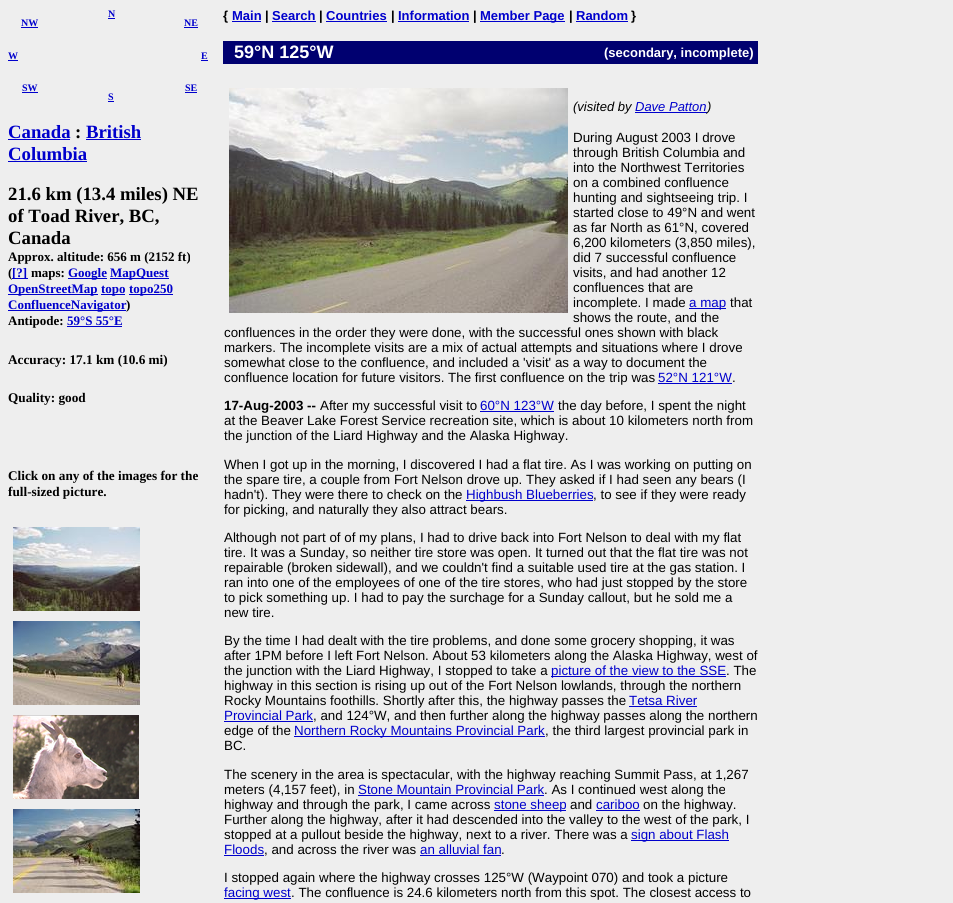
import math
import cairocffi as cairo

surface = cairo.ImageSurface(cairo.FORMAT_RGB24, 953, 903)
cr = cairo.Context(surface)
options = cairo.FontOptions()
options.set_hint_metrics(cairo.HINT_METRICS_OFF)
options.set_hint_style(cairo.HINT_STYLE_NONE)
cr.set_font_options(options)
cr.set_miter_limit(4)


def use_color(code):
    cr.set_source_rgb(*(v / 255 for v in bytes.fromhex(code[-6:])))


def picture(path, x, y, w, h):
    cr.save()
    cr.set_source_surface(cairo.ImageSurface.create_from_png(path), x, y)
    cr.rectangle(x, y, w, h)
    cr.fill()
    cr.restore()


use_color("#eeeeee")
cr.paint()
cr.select_font_face("Liberation Serif", cairo.FONT_SLANT_NORMAL, cairo.FONT_WEIGHT_BOLD)
cr.set_font_size(10)
use_color("#0000cc")
cr.move_to(8, 59)
cr.show_text("W")
cr.rectangle(8, 60, 10, 1)
cr.fill()
cr.move_to(108, 17)
cr.show_text("N")
cr.rectangle(108, 18, 7, 1)
cr.fill()
cr.move_to(21, 26)
cr.show_text("NW")
cr.rectangle(21, 27, 17, 1)
cr.fill()
cr.move_to(184, 26)
cr.show_text("NE")
cr.rectangle(184, 27, 14, 1)
cr.fill()
cr.move_to(22, 91)
cr.show_text("SW")
cr.rectangle(22, 92, 16, 1)
cr.fill()
cr.move_to(185, 91)
cr.show_text("SE")
cr.rectangle(185, 92, 12, 1)
cr.fill()
cr.move_to(108, 100)
cr.show_text("S")
cr.rectangle(108, 101, 6, 1)
cr.fill()
cr.move_to(201, 59)
cr.show_text("E")
cr.rectangle(201, 60, 7, 1)
cr.fill()
cr.set_font_size(18.75)
cr.move_to(8, 138)
cr.show_text("Canada")
cr.rectangle(8, 139, 62, 1)
cr.fill()
use_color("#000000")
cr.move_to(75, 138)
cr.show_text(":")
use_color("#0000cc")
cr.move_to(86, 138)
cr.show_text("British")
cr.rectangle(86, 139, 55, 1)
cr.fill()
cr.move_to(8, 160)
cr.show_text("Columbia")
cr.rectangle(8, 161, 79, 1)
cr.fill()
use_color("#000000")
cr.move_to(8, 200)
cr.show_text("21.6 km (13.4 miles) NE")
cr.move_to(8, 222)
cr.show_text("of Toad River, BC,")
cr.move_to(8, 244)
cr.show_text("Canada")
cr.set_font_size(13)
cr.move_to(8, 261)
cr.show_text("Approx. altitude: 656 m (2152 ft)")
cr.move_to(8, 277)
cr.show_text("(")
use_color("#0000cc")
cr.rectangle(12, 278, 16, 1)
cr.fill()
cr.move_to(12, 277)
cr.show_text("[?]")
use_color("#000000")
cr.move_to(31, 277)
cr.show_text("maps:")
use_color("#0000cc")
cr.rectangle(68, 278, 39, 1)
cr.fill()
cr.move_to(68, 277)
cr.show_text("Google")
cr.rectangle(110, 278, 59, 1)
cr.fill()
cr.move_to(110, 277)
cr.show_text("MapQuest")
cr.rectangle(8, 294, 90, 1)
cr.fill()
cr.move_to(8, 293)
cr.show_text("OpenStreetMap")
cr.rectangle(101, 294, 24, 1)
cr.fill()
cr.move_to(101, 293)
cr.show_text("topo")
cr.rectangle(129, 294, 44, 1)
cr.fill()
cr.move_to(129, 293)
cr.show_text("topo250")
cr.rectangle(8, 310, 118, 1)
cr.fill()
cr.move_to(8, 309)
cr.show_text("ConfluenceNavigator")
use_color("#000000")
cr.move_to(126, 309)
cr.show_text(")")
cr.move_to(8, 325)
cr.show_text("Antipode:")
use_color("#0000cc")
cr.move_to(67, 325)
cr.show_text("59°S 55°E")
cr.rectangle(67, 326, 55, 1)
cr.fill()
cr.set_font_size(13.25)
use_color("#000000")
cr.move_to(8, 364)
cr.show_text("Accuracy: 17.1 km (10.6 mi)")
cr.move_to(8, 402)
cr.show_text("Quality: good")
cr.move_to(8, 480)
cr.show_text("Click on any of the images for the")
cr.move_to(8, 496)
cr.show_text("full-sized picture.")
picture("img1.png", 13, 527, 127, 84)
picture("img2.png", 13, 621, 127, 84)
picture("img3.png", 13, 715, 126, 84)
picture("img4.png", 13, 809, 127, 84)
cr.select_font_face("Liberation Sans", cairo.FONT_SLANT_NORMAL, cairo.FONT_WEIGHT_BOLD)
cr.set_font_size(13)
cr.move_to(223, 20)
cr.show_text("{")
use_color("#0000cc")
cr.move_to(232, 20)
cr.show_text("Main")
cr.rectangle(232, 21, 29, 1)
cr.fill()
use_color("#000000")
cr.move_to(265, 20)
cr.show_text("|")
use_color("#0000cc")
cr.move_to(272, 20)
cr.show_text("Search")
cr.rectangle(272, 21, 44, 1)
cr.fill()
use_color("#000000")
cr.move_to(319, 20)
cr.show_text("|")
use_color("#0000cc")
cr.move_to(326, 20)
cr.show_text("Countries")
cr.rectangle(326, 21, 61, 1)
cr.fill()
use_color("#000000")
cr.move_to(391, 20)
cr.show_text("|")
use_color("#0000cc")
cr.move_to(398, 20)
cr.show_text("Information")
cr.rectangle(398, 21, 71, 1)
cr.fill()
use_color("#000000")
cr.move_to(473, 20)
cr.show_text("|")
use_color("#0000cc")
cr.rectangle(480, 21, 85, 1)
cr.fill()
cr.move_to(480, 20)
cr.show_text("Member Page")
use_color("#000000")
cr.move_to(569, 20)
cr.show_text("|")
use_color("#0000cc")
cr.move_to(576, 20)
cr.show_text("Random")
cr.rectangle(576, 21, 52, 1)
cr.fill()
use_color("#000000")
cr.move_to(631, 20)
cr.show_text("}")
use_color("#000070")
cr.rectangle(223, 41, 535, 23)
cr.fill()
cr.set_font_size(18)
use_color("#ffffff")
cr.move_to(234, 58)
cr.show_text("59°N 125°W")
cr.set_font_size(13)
cr.move_to(604, 57)
cr.show_text("(secondary, incomplete)")
picture("img5.png", 229, 88, 339, 225)
cr.select_font_face("Liberation Sans", cairo.FONT_SLANT_ITALIC)
use_color("#000000")
cr.move_to(573, 111)
cr.show_text("(visited by")
use_color("#0000cc")
cr.move_to(635, 111)
cr.show_text("Dave Patton")
cr.rectangle(635, 112, 72, 1)
cr.fill()
use_color("#000000")
cr.move_to(707, 111)
cr.show_text(")")
cr.select_font_face("Liberation Sans")
cr.set_font_size(13.35)
cr.move_to(573, 142)
cr.show_text("During August 2003 I drove")
cr.move_to(573, 157)
cr.show_text("through British Columbia and")
cr.move_to(573, 172)
cr.show_text("into the Northwest Territories")
cr.move_to(573, 187)
cr.show_text("on a combined confluence")
cr.move_to(573, 202)
cr.show_text("hunting and sightseeing trip. I")
cr.move_to(573, 217)
cr.show_text("started close to 49°N and went")
cr.move_to(573, 232)
cr.show_text("as far North as 61°N, covered")
cr.move_to(573, 247)
cr.show_text("6,200 kilometers (3,850 miles),")
cr.move_to(573, 262)
cr.show_text("did 7 successful confluence")
cr.move_to(573, 277)
cr.show_text("visits, and had another 12")
cr.move_to(573, 292)
cr.show_text("confluences that are")
cr.move_to(573, 307)
cr.show_text("incomplete. I made")
use_color("#0000cc")
cr.rectangle(689, 308, 37, 1)
cr.fill()
cr.move_to(689, 307)
cr.show_text("a map")
use_color("#000000")
cr.move_to(730, 307)
cr.show_text("that")
cr.move_to(573, 322)
cr.show_text("shows the route, and the")
cr.move_to(224, 337)
cr.show_text("confluences in the order they were done, with the successful ones shown with black")
cr.move_to(224, 352)
cr.show_text("markers. The incomplete visits are a mix of actual attempts and situations where I drove")
cr.move_to(224, 367)
cr.show_text("somewhat close to the confluence, and included a 'visit' as a way to document the")
cr.move_to(224, 382)
cr.show_text("confluence location for future visitors. The first confluence on the trip was")
use_color("#0000cc")
cr.move_to(658, 382)
cr.show_text("52°N 121°W")
cr.rectangle(658, 383, 74, 1)
cr.fill()
use_color("#000000")
cr.move_to(732, 382)
cr.show_text(".")
cr.select_font_face("Liberation Sans", cairo.FONT_SLANT_NORMAL, cairo.FONT_WEIGHT_BOLD)
cr.move_to(224, 410)
cr.show_text("17-Aug-2003 --")
cr.select_font_face("Liberation Sans")
cr.move_to(320, 410)
cr.show_text("After my successful visit to")
use_color("#0000cc")
cr.move_to(480, 410)
cr.show_text("60°N 123°W")
cr.rectangle(480, 411, 74, 1)
cr.fill()
use_color("#000000")
cr.move_to(558, 410)
cr.show_text("the day before, I spent the night")
cr.move_to(224, 425)
cr.show_text("at the Beaver Lake Forest Service recreation site, which is about 10 kilometers north from")
cr.move_to(224, 440)
cr.show_text("the junction of the Liard Highway and the Alaska Highway.")
cr.move_to(224, 469)
cr.show_text("When I got up in the morning, I discovered I had a flat tire. As I was working on putting on")
cr.move_to(224, 484)
cr.show_text("the spare tire, a couple from Fort Nelson drove up. They asked if I had seen any bears (I")
cr.move_to(224, 499)
cr.show_text("hadn't). They were there to check on the")
use_color("#0000cc")
cr.rectangle(466, 500, 127, 1)
cr.fill()
cr.move_to(466, 499)
cr.show_text("Highbush Blueberries")
use_color("#000000")
cr.move_to(593, 499)
cr.show_text(", to see if they were ready")
cr.move_to(224, 514)
cr.show_text("for picking, and naturally they also attract bears.")
cr.move_to(224, 542)
cr.show_text("Although not part of of my plans, I had to drive back into Fort Nelson to deal with my flat")
cr.move_to(224, 557)
cr.show_text("tire. It was a Sunday, so neither tire store was open. It turned out that the flat tire was not")
cr.move_to(224, 572)
cr.show_text("repairable (broken sidewall), and we couldn't find a suitable used tire at the gas station. I")
cr.move_to(224, 587)
cr.show_text("ran into one of the employees of one of the tire stores, who had just stopped by the store")
cr.move_to(224, 602)
cr.show_text("to pick something up. I had to pay the surchage for a Sunday callout, but he sold me a")
cr.move_to(224, 617)
cr.show_text("new tire.")
cr.move_to(224, 645)
cr.show_text("By the time I had dealt with the tire problems, and done some grocery shopping, it was")
cr.move_to(224, 660)
cr.show_text("after 1PM before I left Fort Nelson. About 53 kilometers along the Alaska Highway, west of")
cr.move_to(224, 675)
cr.show_text("the junction with the Liard Highway, I stopped to take a")
use_color("#0000cc")
cr.rectangle(551, 676, 175, 1)
cr.fill()
cr.move_to(551, 675)
cr.show_text("picture of the view to the SSE")
use_color("#000000")
cr.move_to(726, 675)
cr.show_text(". The")
cr.move_to(224, 690)
cr.show_text("highway in this section is rising up out of the Fort Nelson lowlands, through the northern")
cr.move_to(224, 705)
cr.show_text("Rocky Mountains foothills. Shortly after this, the highway passes the")
use_color("#0000cc")
cr.move_to(629, 705)
cr.show_text("Tetsa River")
cr.rectangle(629, 706, 68, 1)
cr.fill()
cr.move_to(224, 720)
cr.show_text("Provincial Park")
cr.rectangle(224, 721, 89, 1)
cr.fill()
use_color("#000000")
cr.move_to(313, 720)
cr.show_text(", and 124°W, and then further along the highway passes along the northern")
cr.move_to(224, 735)
cr.show_text("edge of the")
use_color("#0000cc")
cr.rectangle(294, 736, 251, 1)
cr.fill()
cr.move_to(294, 735)
cr.show_text("Northern Rocky Mountains Provincial Park")
use_color("#000000")
cr.move_to(545, 735)
cr.show_text(", the third largest provincial park in")
cr.move_to(224, 750)
cr.show_text("BC.")
cr.move_to(224, 779)
cr.show_text("The scenery in the area is spectacular, with the highway reaching Summit Pass, at 1,267")
cr.move_to(224, 794)
cr.show_text("meters (4,157 feet), in")
use_color("#0000cc")
cr.move_to(358, 794)
cr.show_text("Stone Mountain Provincial Park")
cr.rectangle(358, 795, 186, 1)
cr.fill()
use_color("#000000")
cr.move_to(544, 794)
cr.show_text(". As I continued west along the")
cr.move_to(224, 809)
cr.show_text("highway and through the park, I came across")
use_color("#0000cc")
cr.rectangle(494, 810, 72, 1)
cr.fill()
cr.move_to(494, 809)
cr.show_text("stone sheep")
use_color("#000000")
cr.move_to(570, 809)
cr.show_text("and")
use_color("#0000cc")
cr.move_to(596, 809)
cr.show_text("cariboo")
cr.rectangle(596, 810, 44, 1)
cr.fill()
use_color("#000000")
cr.move_to(643, 809)
cr.show_text("on the highway.")
cr.move_to(224, 824)
cr.show_text("Further along the highway, after it had descended into the valley to the west of the park, I")
cr.move_to(224, 839)
cr.show_text("stopped at a pullout beside the highway, next to a river. There was a")
use_color("#0000cc")
cr.rectangle(631, 840, 98, 1)
cr.fill()
cr.move_to(631, 839)
cr.show_text("sign about Flash")
cr.move_to(224, 854)
cr.show_text("Floods")
cr.rectangle(224, 855, 40, 1)
cr.fill()
use_color("#000000")
cr.move_to(264, 854)
cr.show_text(", and across the river was")
use_color("#0000cc")
cr.move_to(420, 854)
cr.show_text("an alluvial fan")
cr.rectangle(420, 855, 81, 1)
cr.fill()
use_color("#000000")
cr.move_to(501, 854)
cr.show_text(".")
cr.move_to(224, 882)
cr.show_text("I stopped again where the highway crosses 125°W (Waypoint 070) and took a picture")
use_color("#0000cc")
cr.rectangle(224, 898, 67, 1)
cr.fill()
cr.move_to(224, 897)
cr.show_text("facing west")
use_color("#000000")
cr.move_to(291, 897)
cr.show_text(". The confluence is 24.6 kilometers north from this spot. The closest access to")
surface.write_to_png("result.png")
